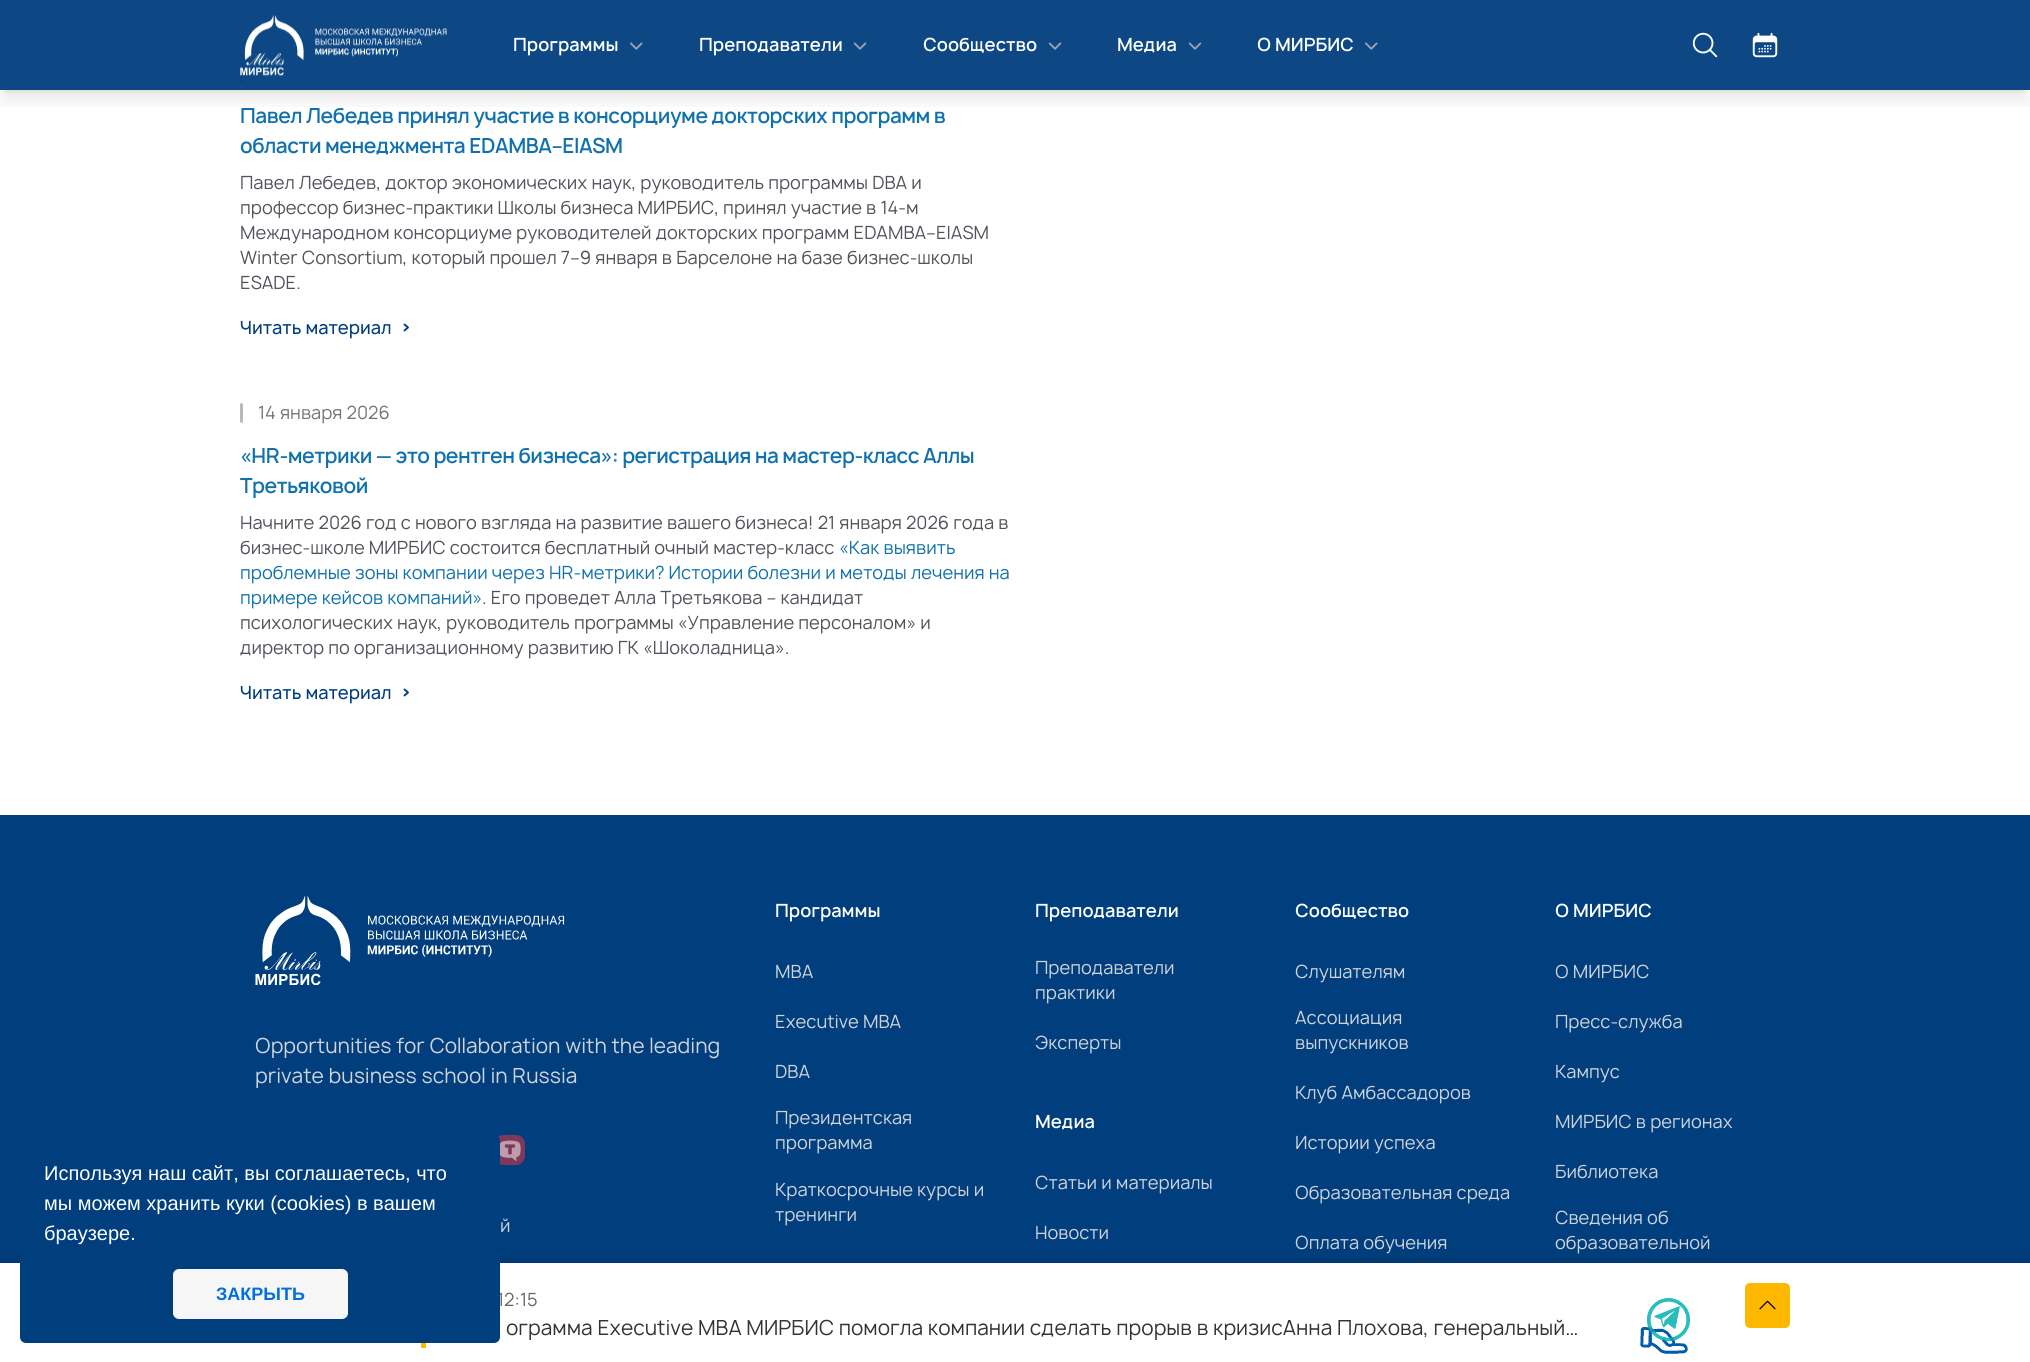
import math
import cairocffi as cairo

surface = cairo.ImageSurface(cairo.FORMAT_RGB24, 2030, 1362)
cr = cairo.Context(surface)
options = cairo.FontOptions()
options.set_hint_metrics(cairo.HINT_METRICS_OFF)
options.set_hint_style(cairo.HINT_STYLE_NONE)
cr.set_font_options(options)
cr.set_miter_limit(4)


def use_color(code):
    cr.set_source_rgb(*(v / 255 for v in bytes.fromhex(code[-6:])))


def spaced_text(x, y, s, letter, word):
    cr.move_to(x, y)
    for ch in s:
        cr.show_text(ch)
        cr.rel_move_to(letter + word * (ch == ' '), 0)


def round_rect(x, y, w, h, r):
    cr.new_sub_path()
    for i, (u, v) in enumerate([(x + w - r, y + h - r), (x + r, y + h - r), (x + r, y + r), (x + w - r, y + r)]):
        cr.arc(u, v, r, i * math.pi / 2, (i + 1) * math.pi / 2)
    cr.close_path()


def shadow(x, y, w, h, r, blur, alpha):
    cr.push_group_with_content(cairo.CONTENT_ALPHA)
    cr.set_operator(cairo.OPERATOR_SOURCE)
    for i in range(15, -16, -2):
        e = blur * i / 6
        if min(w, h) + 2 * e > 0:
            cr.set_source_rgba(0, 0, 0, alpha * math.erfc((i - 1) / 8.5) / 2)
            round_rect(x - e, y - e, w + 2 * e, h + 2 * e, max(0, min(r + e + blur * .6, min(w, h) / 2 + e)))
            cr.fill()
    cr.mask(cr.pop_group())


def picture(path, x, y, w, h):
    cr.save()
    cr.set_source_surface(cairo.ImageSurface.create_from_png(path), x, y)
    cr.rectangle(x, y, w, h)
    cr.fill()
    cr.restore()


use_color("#ffffff")
cr.paint()
use_color("#0d4884")
cr.rectangle(0, 0, 2030, 90)
cr.fill()
use_color("#094481")
round_rect(240, 63, 3, 20, 1.5)
cr.fill()
cr.save()
cr.rectangle(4, 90, 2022, 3)
cr.clip()
use_color("#000000")
shadow(5, 10, 2020, 80, 0, 4, 0.1)
cr.restore()
cr.save()
cr.rectangle(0, 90, 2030, 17)
cr.clip()
use_color("#000000")
shadow(4, 16, 2022, 83, 0, 9.5, 0.1)
cr.restore()
picture("img1.png", 240, 15, 207, 61)
cr.select_font_face("Manrope SemiBold")
cr.set_font_size(17.5)
use_color("#ffffff")
cr.move_to(513, 51)
cr.show_text("Программы")
picture("img2.png", 630, 42, 13, 8)
cr.move_to(699, 51)
cr.show_text("Преподаватели")
picture("img3.png", 853, 42, 14, 8)
cr.move_to(923, 51)
cr.show_text("Сообщество")
picture("img3.png", 1048, 42, 14, 8)
cr.move_to(1117, 51)
cr.show_text("Медиа")
picture("img3.png", 1188, 42, 14, 8)
cr.move_to(1257, 51)
cr.show_text("О МИРБИС")
picture("img2.png", 1365, 42, 13, 8)
picture("img4.png", 1692, 32, 26, 26)
picture("img5.png", 1752, 32, 26, 26)
cr.set_font_size(20)
use_color("#1071ae")
spaced_text(240, 123, "Павел Лебедев принял участие в консорциуме докторских программ в", -0.5, 0)
spaced_text(240, 153, "области менеджмента EDAMBA–EIASM", -0.5, 0)
cr.select_font_face("Manrope")
cr.set_font_size(17.5)
use_color("#52525b")
cr.move_to(240, 189)
cr.show_text("Павел Лебедев, доктор экономических наук, руководитель программы DBA и")
cr.move_to(240, 214)
cr.show_text("профессор бизнес-практики Школы бизнеса МИРБИС, принял участие в 14-м")
cr.move_to(240, 239)
cr.show_text("Международном консорциуме руководителей докторских программ EDAMBA–EIASM")
cr.move_to(240, 264)
cr.show_text("Winter Consortium, который прошел 7–9 января в Барселоне на базе бизнес-школы")
cr.move_to(240, 289)
cr.show_text("ESADE.")
cr.select_font_face("Manrope Medium")
use_color("#003e7e")
cr.move_to(240, 334)
cr.show_text("Читать материал")
cr.new_path()
cr.move_to(404.5, 324.5)
cr.line_to(408, 327.5)
cr.line_to(404.5, 330.5)
cr.set_line_width(1.9)
cr.set_line_cap(cairo.LINE_CAP_ROUND)
cr.set_line_join(cairo.LINE_JOIN_ROUND)
cr.stroke()
use_color("#bababa")
round_rect(240, 403, 3, 20, 1.5)
cr.fill()
cr.select_font_face("Manrope")
use_color("#747474")
cr.move_to(258, 419)
cr.show_text("14 января 2026")
cr.select_font_face("Manrope SemiBold")
cr.set_font_size(20)
use_color("#1071ae")
spaced_text(240, 463, "«HR-метрики — это рентген бизнеса»: регистрация на мастер-класс Аллы", -0.5, 0)
spaced_text(240, 493, "Третьяковой", -0.5, 0)
cr.select_font_face("Manrope")
cr.set_font_size(17.5)
use_color("#52525b")
cr.move_to(240, 529)
cr.show_text("Начните 2026 год с нового взгляда на развитие вашего бизнеса! 21 января 2026 года в")
cr.move_to(240, 554)
cr.show_text("бизнес-школе МИРБИС состоится бесплатный очный мастер-класс")
use_color("#1071ae")
cr.move_to(839, 554)
cr.show_text("«Как выявить")
cr.move_to(240, 579)
cr.show_text("проблемные зоны компании через HR-метрики? Истории болезни и методы лечения на")
cr.move_to(240, 604)
cr.show_text("примере кейсов компаний»")
use_color("#52525b")
cr.move_to(482, 604)
cr.show_text(". Его проведет Алла Третьякова – кандидат")
cr.move_to(240, 629)
cr.show_text("психологических наук, руководитель программы «Управление персоналом» и")
cr.move_to(240, 654)
cr.show_text("директор по организационному развитию ГК «Шоколадница».")
cr.select_font_face("Manrope Medium")
use_color("#003e7e")
cr.move_to(240, 699)
cr.show_text("Читать материал")
cr.new_path()
cr.move_to(404.5, 689.5)
cr.line_to(408, 692.5)
cr.line_to(404.5, 695.5)
cr.stroke()
cr.rectangle(0, 815, 2030, 448)
cr.fill()
picture("img7.png", 498, 1135, 27, 30)
use_color("#000000")
shadow(0, 1263, 2030, 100, 0, 9.5, 0.15)
use_color("#ffffff")
cr.rectangle(0, 1263, 2030, 99)
cr.fill()
cr.select_font_face("Manrope")
use_color("#656565")
cr.move_to(497, 1306)
cr.show_text("12:15")
use_color("#003e7e")
round_rect(20, 1135, 480, 208, 6)
cr.fill()
cr.select_font_face("Liberation Sans")
cr.set_font_size(20)
use_color("#ffffff")
cr.move_to(44, 1180)
cr.show_text("Используя наш сайт, вы соглашаетесь, что")
cr.move_to(44, 1210)
cr.show_text("мы можем хранить куки (cookies) в вашем")
cr.move_to(44, 1240)
cr.show_text("браузере.")
use_color("#f6f6f7")
round_rect(173, 1269, 175, 50, 6)
cr.fill()
cr.select_font_face("Liberation Sans", cairo.FONT_SLANT_NORMAL, cairo.FONT_WEIGHT_BOLD)
cr.set_font_size(18)
use_color("#0070df")
cr.move_to(216, 1300)
cr.show_text("ЗАКРЫТЬ")
picture("img6.png", 255, 895, 310, 90)
cr.select_font_face("Manrope")
cr.set_font_size(20)
use_color("#d1d5db")
cr.move_to(255, 1053)
cr.show_text("Opportunities for Collaboration with the leading")
cr.move_to(255, 1083)
cr.show_text("private business school in Russia")
cr.set_font_size(17.5)
cr.move_to(500, 1232)
cr.show_text("й")
cr.select_font_face("Manrope SemiBold")
use_color("#ffffff")
cr.move_to(775, 917)
cr.show_text("Программы")
cr.select_font_face("Manrope")
use_color("#d1d5db")
cr.move_to(775, 978)
cr.show_text("МВА")
cr.move_to(775, 1028)
cr.show_text("Executive MBA")
cr.move_to(775, 1078)
cr.show_text("DBA")
cr.move_to(775, 1124)
cr.show_text("Президентская")
cr.move_to(775, 1149)
cr.show_text("программа")
cr.move_to(775, 1196)
cr.show_text("Краткосрочные курсы и")
cr.move_to(775, 1221)
cr.show_text("тренинги")
cr.select_font_face("Manrope SemiBold")
use_color("#ffffff")
cr.move_to(1035, 917)
cr.show_text("Преподаватели")
cr.select_font_face("Manrope")
use_color("#d1d5db")
cr.move_to(1035, 974)
cr.show_text("Преподаватели")
cr.move_to(1035, 999)
cr.show_text("практики")
cr.move_to(1035, 1049)
cr.show_text("Эксперты")
cr.select_font_face("Manrope SemiBold")
use_color("#ffffff")
cr.move_to(1035, 1128)
cr.show_text("Медиа")
cr.select_font_face("Manrope")
use_color("#d1d5db")
cr.move_to(1035, 1189)
cr.show_text("Статьи и материалы")
cr.move_to(1035, 1239)
cr.show_text("Новости")
cr.select_font_face("Manrope SemiBold")
use_color("#ffffff")
cr.move_to(1295, 917)
cr.show_text("Сообщество")
cr.select_font_face("Manrope")
use_color("#d1d5db")
cr.move_to(1295, 978)
cr.show_text("Слушателям")
cr.move_to(1295, 1024)
cr.show_text("Ассоциация")
cr.move_to(1295, 1049)
cr.show_text("выпускников")
cr.move_to(1295, 1099)
cr.show_text("Клуб Амбассадоров")
cr.move_to(1295, 1149)
cr.show_text("Истории успеха")
cr.move_to(1295, 1199)
cr.show_text("Образовательная среда")
cr.move_to(1295, 1249)
cr.show_text("Оплата обучения")
cr.select_font_face("Manrope SemiBold")
use_color("#ffffff")
cr.move_to(1555, 917)
cr.show_text("О МИРБИС")
cr.select_font_face("Manrope")
use_color("#d1d5db")
cr.move_to(1555, 978)
cr.show_text("О МИРБИС")
cr.move_to(1555, 1028)
cr.show_text("Пресс-служба")
cr.move_to(1555, 1078)
cr.show_text("Кампус")
cr.move_to(1555, 1128)
cr.show_text("МИРБИС в регионах")
cr.move_to(1555, 1178)
cr.show_text("Библиотека")
cr.move_to(1555, 1224)
cr.show_text("Сведения об")
cr.move_to(1555, 1249)
cr.show_text("образовательной")
use_color("#ffb800")
cr.rectangle(421, 1343, 5, 5)
cr.fill()
cr.set_font_size(20)
use_color("#333333")
cr.move_to(506, 1335)
cr.show_text("ограмма Executive MBA МИРБИС помогла компании сделать прорыв в кризисАнна Плохова, генеральный…")
picture("img8.png", 1640, 1298, 50, 56)
use_color("#ffb800")
round_rect(1745, 1283, 45, 45, 5)
cr.fill()
picture("img9.png", 1759, 1300, 17, 10)
surface.write_to_png("result.png")
